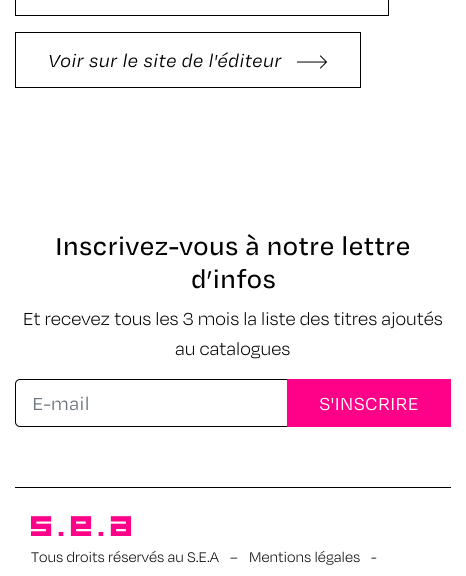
import math
import cairocffi as cairo

surface = cairo.ImageSurface(cairo.FORMAT_RGB24, 466, 576)
cr = cairo.Context(surface)
options = cairo.FontOptions()
options.set_hint_metrics(cairo.HINT_METRICS_OFF)
options.set_hint_style(cairo.HINT_STYLE_NONE)
cr.set_font_options(options)
cr.set_miter_limit(4)


def use_color(code):
    cr.set_source_rgb(*(v / 255 for v in bytes.fromhex(code[-6:])))


def picture(path, x, y, w, h):
    cr.save()
    cr.set_source_surface(cairo.ImageSurface.create_from_png(path), x, y)
    cr.rectangle(x, y, w, h)
    cr.fill()
    cr.restore()


use_color("#ffffff")
cr.paint()
cr.rectangle(15.5, -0.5, 373, 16)
use_color("#000000")
cr.set_line_width(1)
cr.stroke()
cr.rectangle(15.5, 32.5, 345, 55)
cr.stroke()
cr.select_font_face("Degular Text", cairo.FONT_SLANT_ITALIC)
cr.set_font_size(20)
cr.move_to(48, 67)
cr.show_text("Voir sur le site de l'éditeur")
cr.new_path()
cr.move_to(320.5, 68)
cr.line_to(326.5, 62)
cr.move_to(320.5, 56)
cr.line_to(326.5, 62)
cr.move_to(297.5, 62)
cr.line_to(326, 62)
cr.set_line_cap(cairo.LINE_CAP_SQUARE)
cr.stroke()
cr.select_font_face("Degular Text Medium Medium")
cr.set_font_size(28)
cr.move_to(55, 255)
cr.show_text("Inscrivez-vous à notre lettre")
cr.move_to(191, 288)
cr.show_text("d’infos")
cr.select_font_face("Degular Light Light")
cr.set_font_size(20)
cr.move_to(23, 325)
cr.show_text("Et recevez tous les 3 mois la liste des titres ajoutés")
cr.move_to(175, 355)
cr.show_text("au catalogues")
cr.new_path()
cr.move_to(20, 379.5)
cr.line_to(287.5, 379.5)
cr.line_to(287.5, 426.5)
cr.line_to(20, 426.5)
cr.curve_to(17.5, 426.5, 15.5, 424.5, 15.5, 422)
cr.line_to(15.5, 384)
cr.curve_to(15.5, 381.5, 17.5, 379.5, 20, 379.5)
cr.close_path()
cr.set_line_cap(cairo.LINE_CAP_BUTT)
cr.stroke()
cr.select_font_face("Degular Text")
use_color("#6c757d")
cr.move_to(32, 410)
cr.show_text("E-mail")
use_color("#ff0089")
cr.rectangle(287, 379, 164, 48)
cr.fill()
use_color("#ffffff")
cr.move_to(319, 410)
cr.show_text("S'INSCRIRE")
use_color("#000000")
cr.rectangle(15, 487, 436, 1)
cr.fill()
picture("img1.png", 31, 516, 100, 20)
cr.select_font_face("Degular Light Light")
cr.set_font_size(16)
cr.move_to(31, 562)
cr.show_text("Tous droits réservés au S.E.A")
cr.move_to(230, 562)
cr.show_text("–")
cr.move_to(249, 562)
cr.show_text("Mentions légales")
cr.move_to(371, 562)
cr.show_text("-")
surface.write_to_png("result.png")
